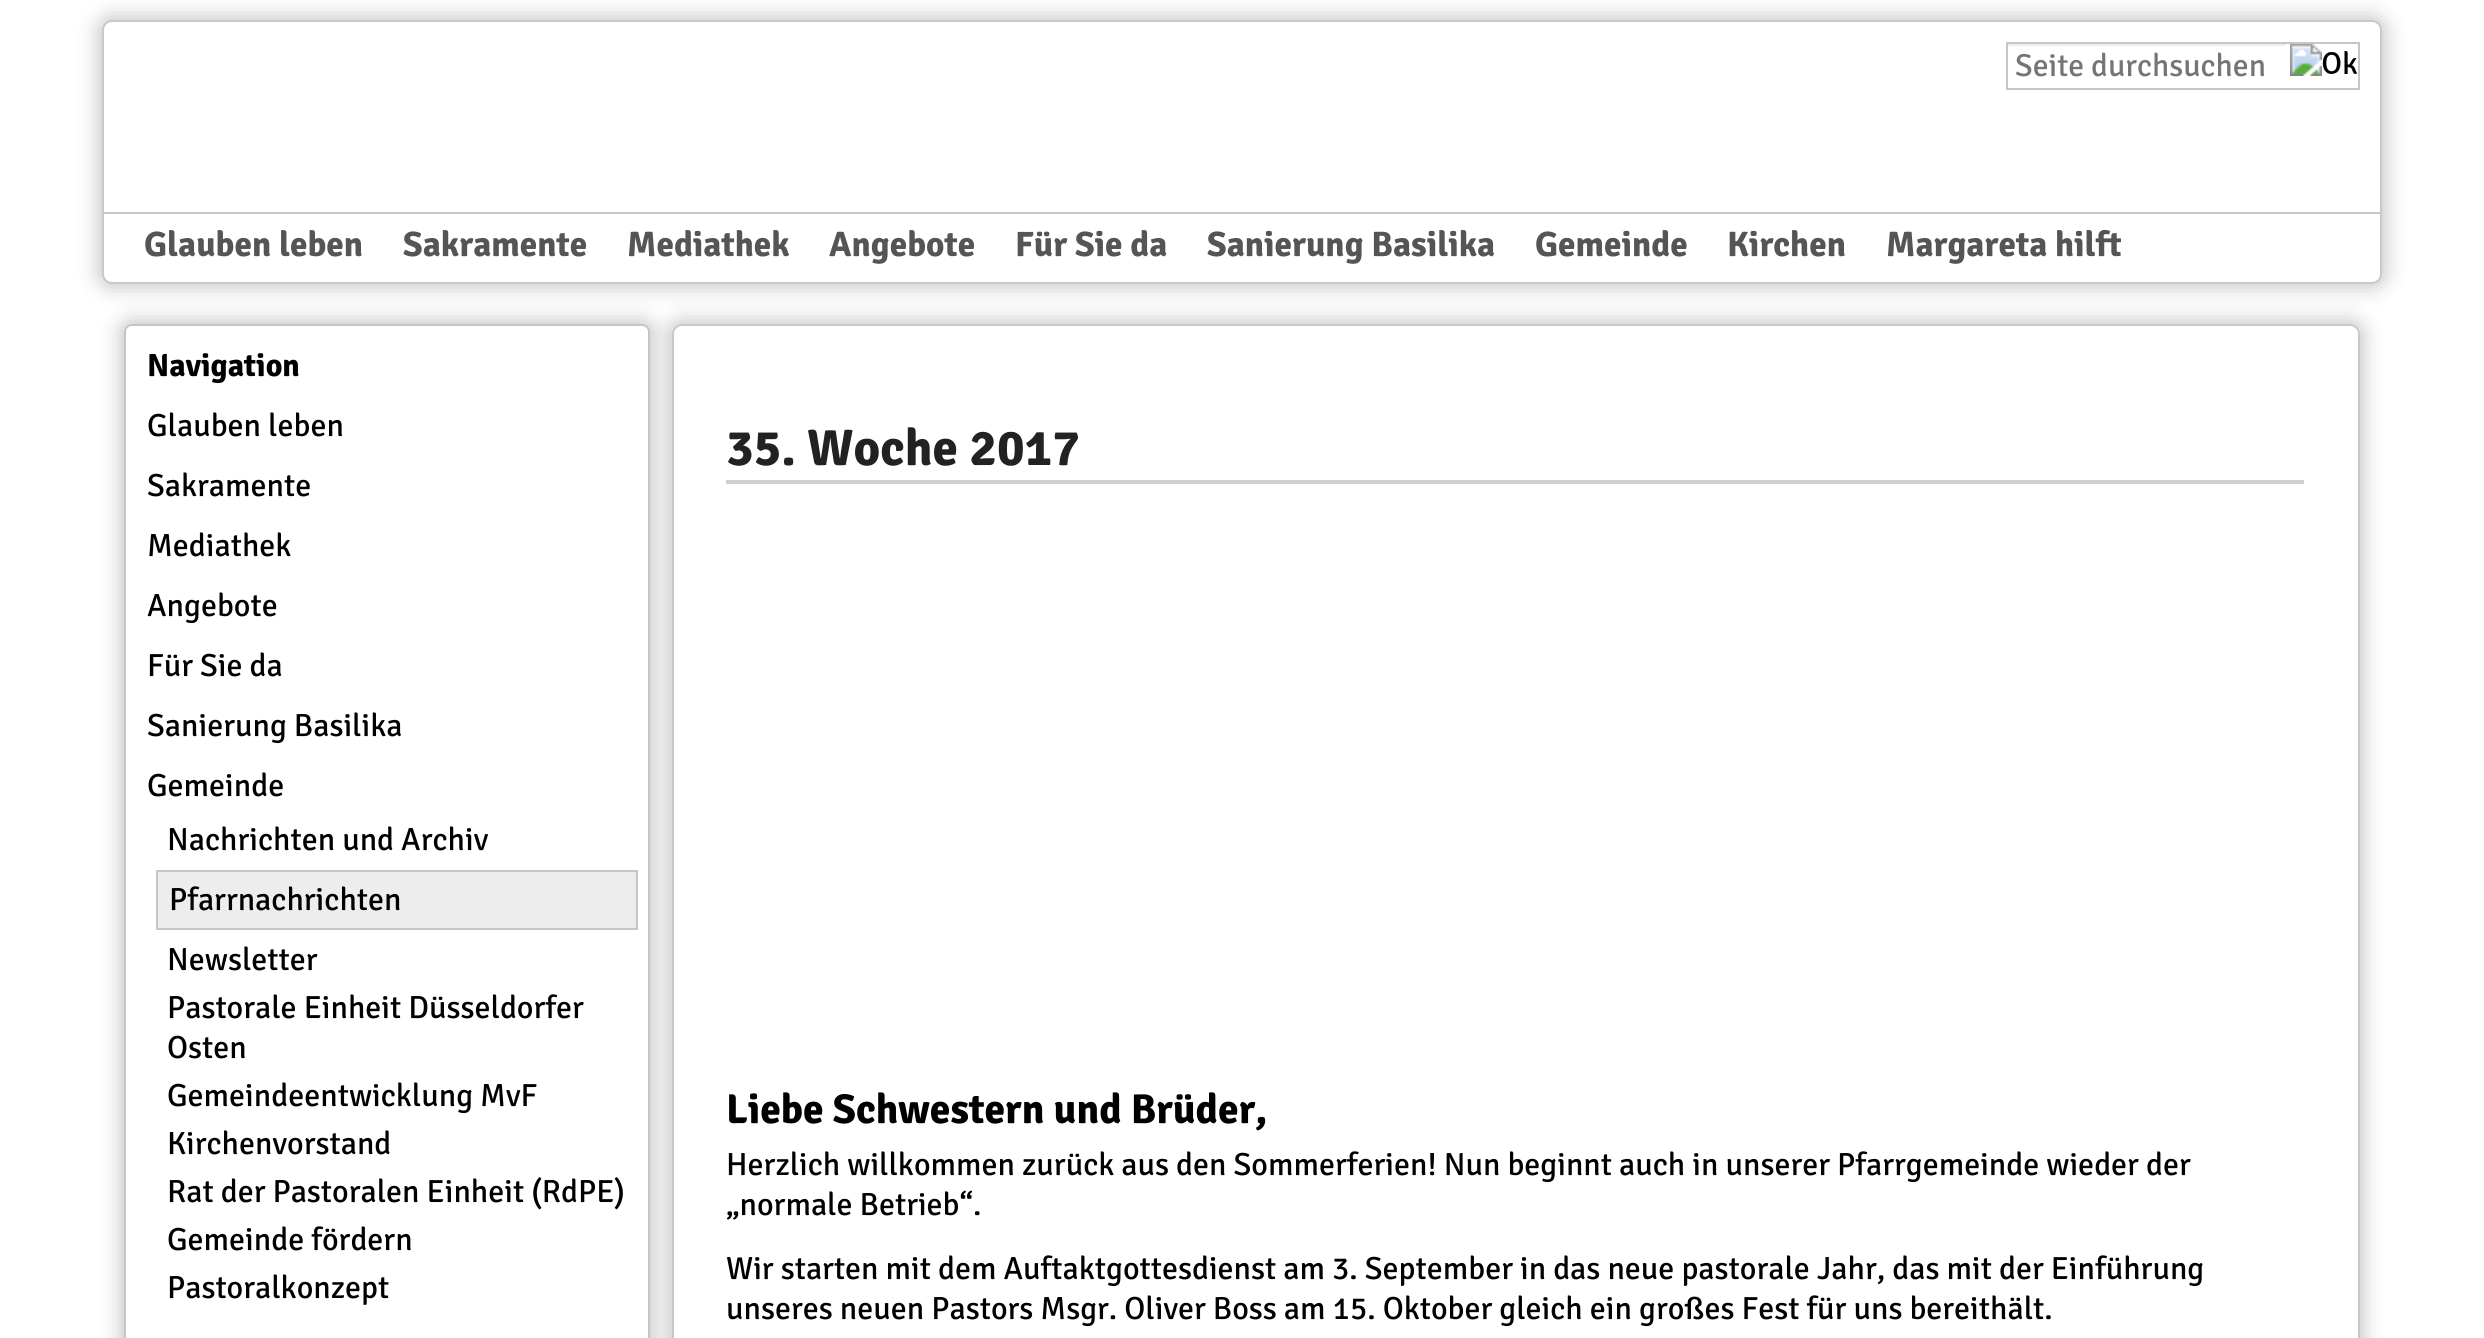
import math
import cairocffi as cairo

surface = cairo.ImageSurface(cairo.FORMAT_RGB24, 2484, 1338)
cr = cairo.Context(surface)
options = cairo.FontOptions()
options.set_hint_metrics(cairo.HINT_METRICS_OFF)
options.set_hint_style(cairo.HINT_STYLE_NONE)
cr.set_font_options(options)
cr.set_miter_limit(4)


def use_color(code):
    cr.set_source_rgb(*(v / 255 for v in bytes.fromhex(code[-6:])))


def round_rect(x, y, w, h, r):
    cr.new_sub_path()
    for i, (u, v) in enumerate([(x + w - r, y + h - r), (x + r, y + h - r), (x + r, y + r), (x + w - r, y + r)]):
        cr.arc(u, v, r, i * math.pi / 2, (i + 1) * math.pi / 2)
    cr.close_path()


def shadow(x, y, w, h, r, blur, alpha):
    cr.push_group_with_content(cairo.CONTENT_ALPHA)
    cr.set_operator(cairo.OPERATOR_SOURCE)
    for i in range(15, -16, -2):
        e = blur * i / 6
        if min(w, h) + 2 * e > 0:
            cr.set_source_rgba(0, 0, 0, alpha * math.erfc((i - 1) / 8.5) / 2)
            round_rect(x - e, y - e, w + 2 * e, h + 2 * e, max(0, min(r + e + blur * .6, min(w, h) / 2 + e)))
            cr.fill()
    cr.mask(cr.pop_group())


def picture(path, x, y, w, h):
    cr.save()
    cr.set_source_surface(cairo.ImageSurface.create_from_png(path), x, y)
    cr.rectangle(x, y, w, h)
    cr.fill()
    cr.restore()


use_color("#ffffff")
cr.paint()
use_color("#c8c8c8")
shadow(98, 16, 2288, 272, 14, 10, 1)
use_color("#ffffff")
round_rect(103, 21, 2278, 262, 9)
cr.fill_preserve()
use_color("#c8c8c8")
cr.stroke()
use_color("#eeeeee")
cr.rectangle(2008, 44, 278, 2)
cr.fill()
use_color("#c6c6c6")
cr.rectangle(2006, 42, 354, 2)
cr.fill()
cr.rectangle(2006, 88, 280, 2)
cr.fill()
cr.rectangle(2006, 42, 2, 48)
cr.fill()
cr.select_font_face("Signika")
cr.set_font_size(31.75)
use_color("#757575")
cr.move_to(2015, 76)
cr.show_text("Seite durchsuchen")
use_color("#c6c6c6")
cr.rectangle(2358, 42, 2, 48)
cr.fill()
cr.rectangle(2286, 88, 74, 2)
cr.fill()
picture("img1.png", 2290, 44, 68, 32)
cr.rectangle(104, 212, 2276, 2)
cr.fill()
cr.select_font_face("Signika", cairo.FONT_SLANT_NORMAL, cairo.FONT_WEIGHT_BOLD)
cr.set_font_size(35.25)
use_color("#555555")
cr.move_to(144, 256)
cr.show_text("Glauben leben")
cr.move_to(403, 256)
cr.show_text("Sakramente")
cr.move_to(627, 256)
cr.show_text("Mediathek")
cr.move_to(829, 256)
cr.show_text("Angebote")
cr.move_to(1015, 256)
cr.show_text("Für Sie da")
cr.move_to(1207, 256)
cr.show_text("Sanierung Basilika")
cr.move_to(1535, 256)
cr.show_text("Gemeinde")
cr.move_to(1727, 256)
cr.show_text("Kirchen")
cr.move_to(1886, 256)
cr.show_text("Margareta hilft")
use_color("#c8c8c8")
shadow(120, 320, 534, 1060, 12, 10, 1)
use_color("#ffffff")
round_rect(125, 325, 524, 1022, 7)
cr.fill_preserve()
use_color("#c6c6c6")
cr.stroke()
cr.set_font_size(32)
use_color("#000000")
cr.move_to(147, 376)
cr.show_text("Navigation")
cr.select_font_face("Signika")
cr.move_to(147, 436)
cr.show_text("Glauben leben")
cr.move_to(147, 496)
cr.show_text("Sakramente")
cr.move_to(147, 556)
cr.show_text("Mediathek")
cr.move_to(147, 616)
cr.show_text("Angebote")
cr.move_to(147, 676)
cr.show_text("Für Sie da")
cr.move_to(147, 736)
cr.show_text("Sanierung Basilika")
cr.move_to(147, 796)
cr.show_text("Gemeinde")
cr.move_to(167, 850)
cr.show_text("Nachrichten und Archiv")
use_color("#ededed")
cr.rectangle(157, 871, 480, 58)
cr.fill_preserve()
use_color("#c6c6c6")
cr.stroke()
use_color("#000000")
cr.move_to(169, 910)
cr.show_text("Pfarrnachrichten")
cr.move_to(167, 970)
cr.show_text("Newsletter")
cr.move_to(167, 1018)
cr.show_text("Pastorale Einheit Düsseldorfer")
cr.move_to(167, 1058)
cr.show_text("Osten")
cr.move_to(167, 1106)
cr.show_text("Gemeindeentwicklung MvF")
cr.move_to(167, 1154)
cr.show_text("Kirchenvorstand")
cr.move_to(167, 1202)
cr.show_text("Rat der Pastoralen Einheit (RdPE)")
cr.move_to(167, 1250)
cr.show_text("Gemeinde fördern")
cr.move_to(167, 1298)
cr.show_text("Pastoralkonzept")
cr.save()
cr.set_fill_rule(cairo.FILL_RULE_EVEN_ODD)
cr.new_path()
cr.move_to(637, 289)
cr.line_to(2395, 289)
cr.line_to(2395, 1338)
cr.line_to(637, 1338)
cr.close_path()
cr.move_to(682, 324)
cr.line_to(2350, 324)
cr.curve_to(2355.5, 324, 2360, 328.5, 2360, 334)
cr.line_to(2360, 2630)
cr.curve_to(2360, 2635.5, 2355.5, 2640, 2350, 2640)
cr.line_to(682, 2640)
cr.curve_to(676.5, 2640, 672, 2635.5, 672, 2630)
cr.line_to(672, 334)
cr.curve_to(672, 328.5, 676.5, 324, 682, 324)
cr.close_path()
cr.clip()
use_color("#c8c8c8")
shadow(668, 320, 1696, 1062, 14, 10, 1)
cr.restore()
cr.set_source_rgba(1, 1, 1, 0.95)
round_rect(673, 325, 1686, 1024, 9)
cr.fill_preserve()
use_color("#c8c8c8")
cr.stroke()
use_color("#cfcfcf")
cr.rectangle(726, 480, 1578, 4)
cr.fill()
cr.select_font_face("Signika", cairo.FONT_SLANT_NORMAL, cairo.FONT_WEIGHT_BOLD)
cr.set_font_size(51.25)
use_color("#222222")
cr.move_to(726, 465)
cr.show_text("35. Woche 2017")
cr.set_font_size(41.6)
use_color("#000000")
cr.move_to(726, 1123)
cr.show_text("Liebe Schwestern und Brüder,")
cr.select_font_face("Signika")
cr.set_font_size(32)
cr.move_to(726, 1175)
cr.show_text("Herzlich willkommen zurück aus den Sommerferien! Nun beginnt auch in unserer Pfarrgemeinde wieder der")
cr.move_to(726, 1215)
cr.show_text("„normale Betrieb“.")
cr.move_to(726, 1279)
cr.show_text("Wir starten mit dem Auftaktgottesdienst am 3. September in das neue pastorale Jahr, das mit der Einführung")
cr.move_to(726, 1319)
cr.show_text("unseres neuen Pastors Msgr. Oliver Boss am 15. Oktober gleich ein großes Fest für uns bereithält.")
surface.write_to_png("result.png")
